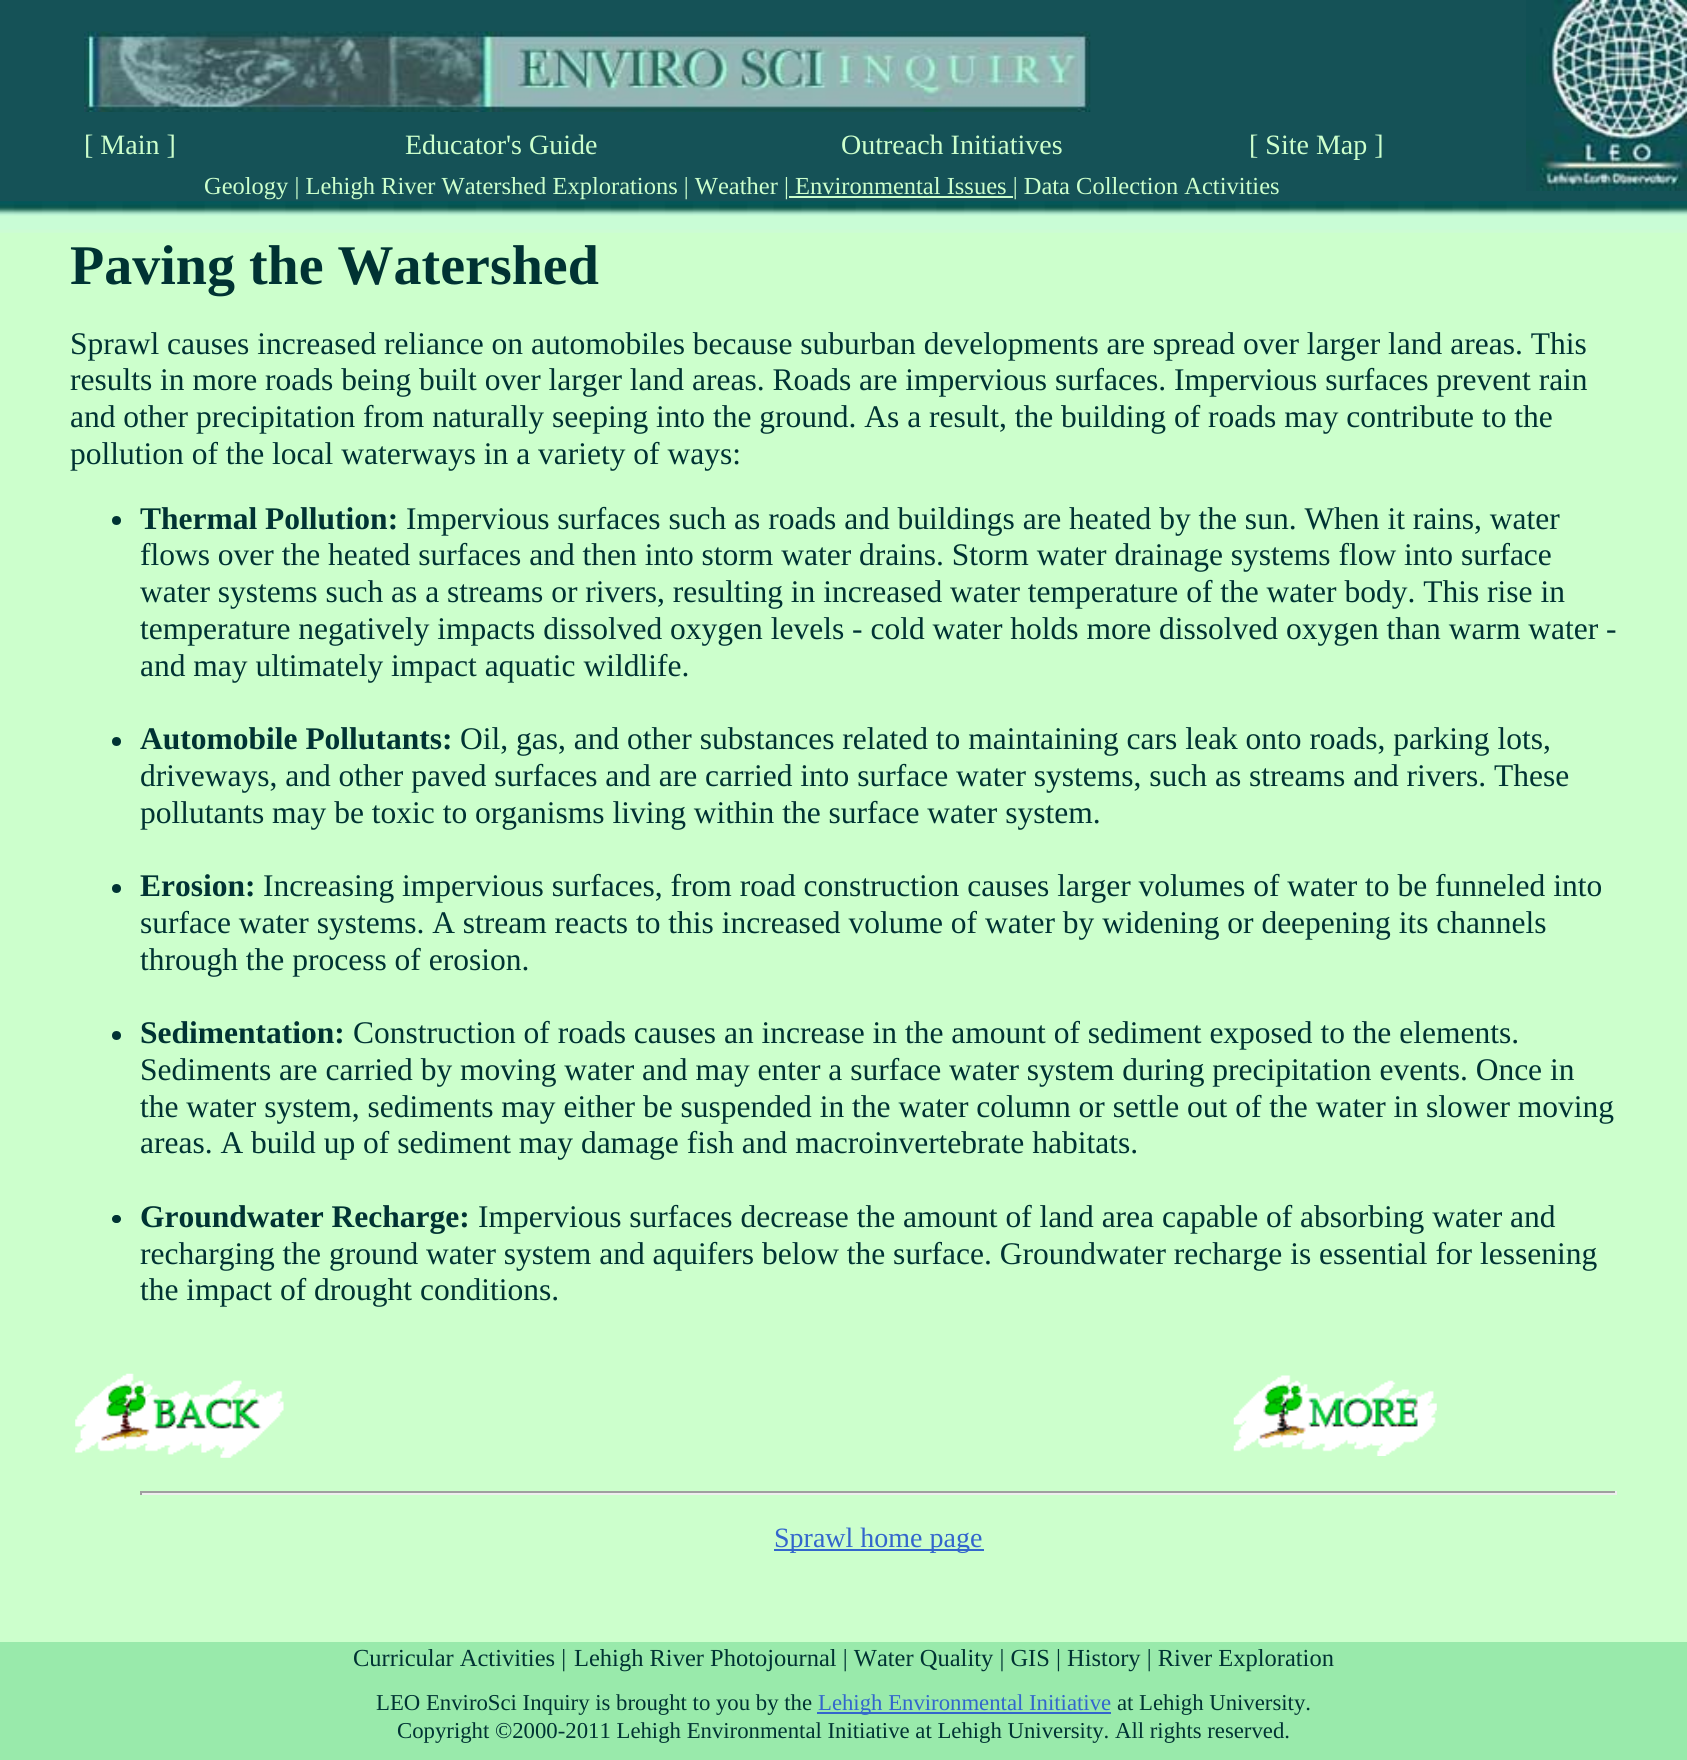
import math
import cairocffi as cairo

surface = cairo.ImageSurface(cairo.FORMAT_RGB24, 1687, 1760)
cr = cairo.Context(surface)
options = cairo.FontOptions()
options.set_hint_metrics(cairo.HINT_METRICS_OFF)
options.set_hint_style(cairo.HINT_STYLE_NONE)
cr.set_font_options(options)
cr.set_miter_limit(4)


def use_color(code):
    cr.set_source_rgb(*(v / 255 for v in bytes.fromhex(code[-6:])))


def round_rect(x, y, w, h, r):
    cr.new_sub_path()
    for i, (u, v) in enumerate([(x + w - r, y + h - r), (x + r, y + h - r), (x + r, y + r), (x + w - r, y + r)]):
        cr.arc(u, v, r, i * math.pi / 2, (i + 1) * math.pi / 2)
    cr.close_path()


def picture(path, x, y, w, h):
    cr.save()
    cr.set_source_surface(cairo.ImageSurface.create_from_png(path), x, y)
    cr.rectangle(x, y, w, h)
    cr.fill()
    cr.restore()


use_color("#ccffcc")
cr.paint()
use_color("#155257")
cr.rectangle(0, 0, 1687, 202)
cr.fill()
picture("img1.png", 84, 31, 1007, 81)
picture("img2.png", 1526, 0, 161, 191)
cr.select_font_face("Liberation Serif")
cr.set_font_size(28)
use_color("#ccffcc")
cr.move_to(84, 154)
cr.show_text("[ Main ]")
cr.move_to(405, 154)
cr.show_text("Educator's Guide")
cr.move_to(841, 154)
cr.show_text("Outreach Initiatives")
cr.move_to(1249, 154)
cr.show_text("[ Site Map ]")
cr.set_font_size(24.5)
cr.move_to(204, 194)
cr.show_text("Geology | Lehigh River Watershed Explorations | Weather | Environmental Issues | Data Collection Activities")
cr.rectangle(789, 196, 224, 2)
cr.fill()
picture("img3.png", 0, 201, 1687, 32)
cr.select_font_face("Liberation Serif", cairo.FONT_SLANT_NORMAL, cairo.FONT_WEIGHT_BOLD)
cr.set_font_size(56)
use_color("#003333")
cr.move_to(70, 284)
cr.show_text("Paving the Watershed")
cr.select_font_face("Liberation Serif")
cr.set_font_size(31.5)
cr.move_to(70, 354)
cr.show_text("Sprawl causes increased reliance on automobiles because suburban developments are spread over larger land areas. This")
cr.move_to(70, 390)
cr.show_text("results in more roads being built over larger land areas. Roads are impervious surfaces. Impervious surfaces prevent rain")
cr.move_to(70, 427)
cr.show_text("and other precipitation from naturally seeping into the ground. As a result, the building of roads may contribute to the")
cr.move_to(70, 464)
cr.show_text("pollution of the local waterways in a variety of ways:")
cr.new_path()
cr.arc(116.5, 520.5, 4.5, 0, 2 * math.pi)
cr.fill()
cr.select_font_face("Liberation Serif", cairo.FONT_SLANT_NORMAL, cairo.FONT_WEIGHT_BOLD)
cr.move_to(140, 529)
cr.show_text("Thermal Pollution:")
cr.select_font_face("Liberation Serif")
cr.move_to(406, 529)
cr.show_text("Impervious surfaces such as roads and buildings are heated by the sun. When it rains, water")
cr.move_to(140, 565)
cr.show_text("flows over the heated surfaces and then into storm water drains. Storm water drainage systems flow into surface")
cr.move_to(140, 602)
cr.show_text("water systems such as a streams or rivers, resulting in increased water temperature of the water body. This rise in")
cr.move_to(140, 639)
cr.show_text("temperature negatively impacts dissolved oxygen levels - cold water holds more dissolved oxygen than warm water -")
cr.move_to(140, 676)
cr.show_text("and may ultimately impact aquatic wildlife.")
cr.new_path()
cr.arc(116.5, 741.5, 4.5, 0, 2 * math.pi)
cr.fill()
cr.select_font_face("Liberation Serif", cairo.FONT_SLANT_NORMAL, cairo.FONT_WEIGHT_BOLD)
cr.move_to(140, 749)
cr.show_text("Automobile Pollutants:")
cr.select_font_face("Liberation Serif")
cr.move_to(460, 749)
cr.show_text("Oil, gas, and other substances related to maintaining cars leak onto roads, parking lots,")
cr.move_to(140, 786)
cr.show_text("driveways, and other paved surfaces and are carried into surface water systems, such as streams and rivers. These")
cr.move_to(140, 823)
cr.show_text("pollutants may be toxic to organisms living within the surface water system.")
cr.new_path()
cr.arc(116.5, 888.5, 4.5, 0, 2 * math.pi)
cr.fill()
cr.select_font_face("Liberation Serif", cairo.FONT_SLANT_NORMAL, cairo.FONT_WEIGHT_BOLD)
cr.move_to(140, 896)
cr.show_text("Erosion:")
cr.select_font_face("Liberation Serif")
cr.move_to(263, 896)
cr.show_text("Increasing impervious surfaces, from road construction causes larger volumes of water to be funneled into")
cr.move_to(140, 933)
cr.show_text("surface water systems. A stream reacts to this increased volume of water by widening or deepening its channels")
cr.move_to(140, 970)
cr.show_text("through the process of erosion.")
cr.new_path()
cr.arc(116.5, 1035.5, 4.5, 0, 2 * math.pi)
cr.fill()
cr.select_font_face("Liberation Serif", cairo.FONT_SLANT_NORMAL, cairo.FONT_WEIGHT_BOLD)
cr.move_to(140, 1043)
cr.show_text("Sedimentation:")
cr.select_font_face("Liberation Serif")
cr.move_to(353, 1043)
cr.show_text("Construction of roads causes an increase in the amount of sediment exposed to the elements.")
cr.move_to(140, 1080)
cr.show_text("Sediments are carried by moving water and may enter a surface water system during precipitation events. Once in")
cr.move_to(140, 1117)
cr.show_text("the water system, sediments may either be suspended in the water column or settle out of the water in slower moving")
cr.move_to(140, 1153)
cr.show_text("areas. A build up of sediment may damage fish and macroinvertebrate habitats.")
round_rect(112, 1215, 9, 8, 4)
cr.fill()
cr.select_font_face("Liberation Serif", cairo.FONT_SLANT_NORMAL, cairo.FONT_WEIGHT_BOLD)
cr.move_to(140, 1227)
cr.show_text("Groundwater Recharge:")
cr.select_font_face("Liberation Serif")
cr.move_to(478, 1227)
cr.show_text("Impervious surfaces decrease the amount of land area capable of absorbing water and")
cr.move_to(140, 1264)
cr.show_text("recharging the ground water system and aquifers below the surface. Groundwater recharge is essential for lessening")
cr.move_to(140, 1300)
cr.show_text("the impact of drought conditions.")
picture("img4.png", 75, 1373, 209, 85)
picture("img5.png", 1233, 1375, 204, 81)
use_color("#9f9f9f")
cr.rectangle(140, 1491, 1477, 2)
cr.fill()
use_color("#eeeeee")
cr.rectangle(1615, 1491, 2, 4)
cr.fill()
cr.rectangle(140, 1493, 1477, 2)
cr.fill()
use_color("#9f9f9f")
cr.rectangle(140, 1491, 2, 4)
cr.fill()
use_color("#3366cc")
cr.rectangle(774, 1549, 210, 2)
cr.fill()
cr.set_font_size(28)
cr.move_to(774, 1547)
cr.show_text("Sprawl home page")
use_color("#99eaab")
cr.rectangle(0, 1642, 1687, 118)
cr.fill()
cr.set_font_size(24.5)
use_color("#003333")
cr.move_to(353, 1666)
cr.show_text("Curricular Activities |")
cr.move_to(574, 1666)
cr.show_text("Lehigh River Photojournal | Water Quality | GIS | History | River Exploration")
cr.set_font_size(22.75)
cr.move_to(376, 1710)
cr.show_text("LEO EnviroSci Inquiry is brought to you by the")
use_color("#3366cc")
cr.rectangle(817, 1712, 294, 2)
cr.fill()
cr.move_to(818, 1710)
cr.show_text("Lehigh Environmental Initiative")
use_color("#003333")
cr.move_to(1117, 1710)
cr.show_text("at Lehigh University.")
cr.move_to(397, 1738)
cr.show_text("Copyright ©2000-2011 Lehigh Environmental Initiative at Lehigh University. All rights reserved.")
surface.write_to_png("result.png")
